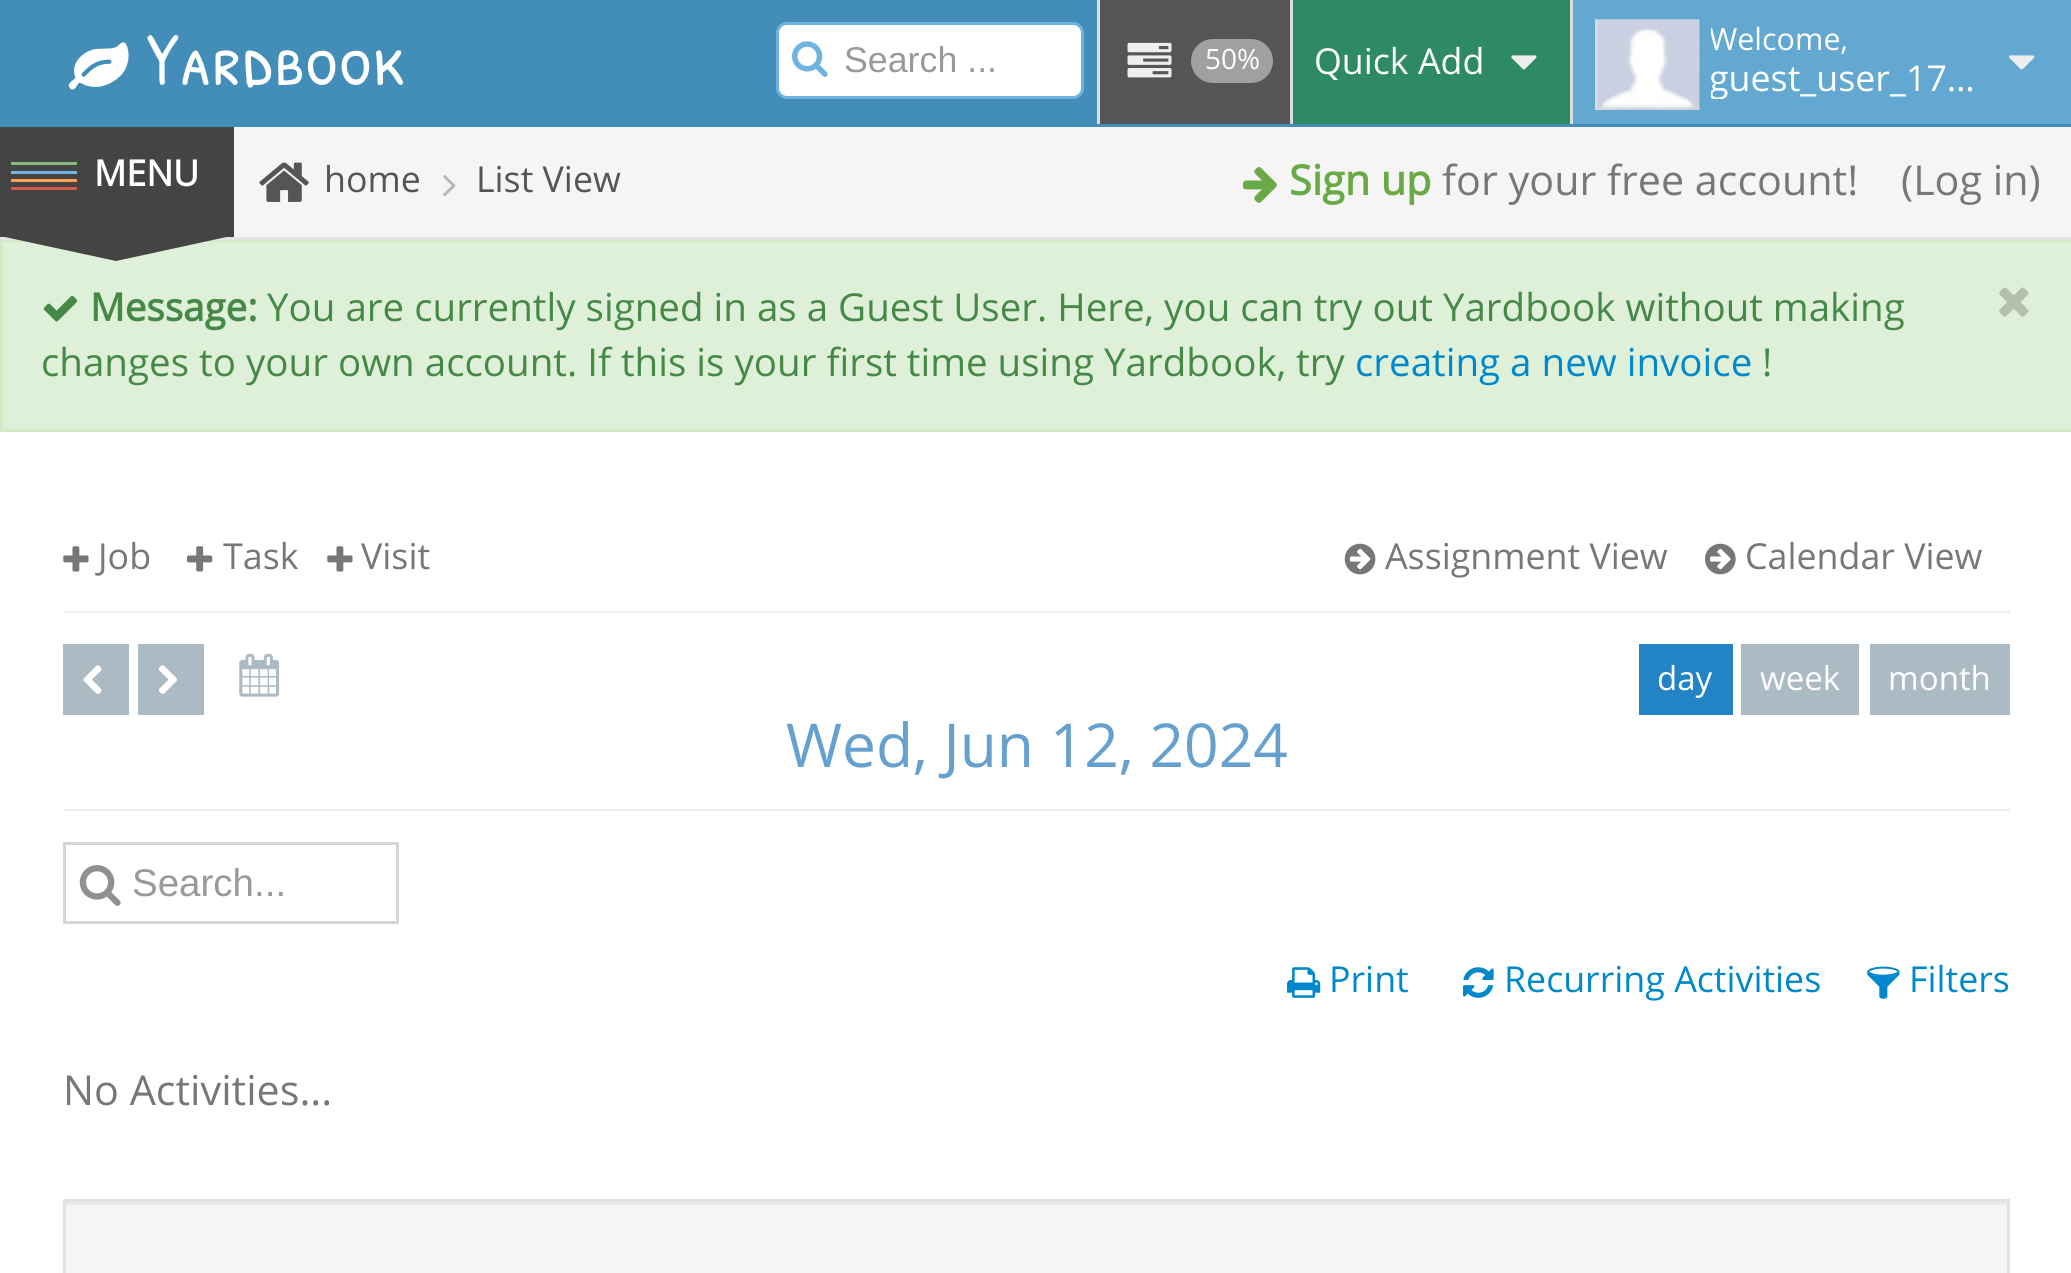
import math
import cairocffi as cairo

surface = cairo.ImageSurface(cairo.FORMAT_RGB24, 2071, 1273)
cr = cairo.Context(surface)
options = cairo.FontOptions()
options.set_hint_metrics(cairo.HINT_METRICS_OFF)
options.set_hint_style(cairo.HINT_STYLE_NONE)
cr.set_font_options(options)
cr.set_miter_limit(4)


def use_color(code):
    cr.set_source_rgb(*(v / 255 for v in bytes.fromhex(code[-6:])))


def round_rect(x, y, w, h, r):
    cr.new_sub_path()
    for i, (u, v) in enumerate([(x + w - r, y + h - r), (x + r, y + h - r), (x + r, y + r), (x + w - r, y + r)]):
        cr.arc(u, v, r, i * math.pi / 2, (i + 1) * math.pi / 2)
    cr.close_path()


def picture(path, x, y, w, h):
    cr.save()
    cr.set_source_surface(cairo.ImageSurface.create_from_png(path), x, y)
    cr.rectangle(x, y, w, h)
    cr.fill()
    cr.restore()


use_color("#ffffff")
cr.paint()
use_color("#438eb9")
cr.rectangle(0, 0, 2071, 127)
cr.fill()
picture("img1.png", 68, 42, 61, 48)
cr.select_font_face("Patrick Hand SC")
cr.set_font_size(75)
use_color("#ffffff")
cr.move_to(146, 85)
cr.show_text("Yardbook")
round_rect(777.5, 23.5, 305, 74, 9.5)
cr.fill_preserve()
use_color("#6fb3e0")
cr.set_line_width(3)
cr.stroke()
picture("img2.png", 792, 41, 36, 36)
cr.select_font_face("Liberation Sans")
cr.set_font_size(35.75)
use_color("#999999")
cr.move_to(844, 72)
cr.show_text("Search ...")
use_color("#555555")
cr.rectangle(1100, 0, 190, 124)
cr.fill()
use_color("#dddddd")
cr.rectangle(1097, 0, 3, 124)
cr.fill()
picture("img3.png", 1127, 42, 45, 36)
use_color("#a0a0a0")
round_rect(1191, 39, 82, 44, 22)
cr.fill()
cr.select_font_face("Open Sans")
cr.set_font_size(28)
use_color("#ffffff")
cr.move_to(1205, 69)
cr.show_text("50%")
use_color("#2e8965")
cr.rectangle(1293, 0, 277, 124)
cr.fill()
use_color("#dddddd")
cr.rectangle(1290, 0, 3, 124)
cr.fill()
cr.set_font_size(35.75)
use_color("#ffffff")
cr.move_to(1314, 74)
cr.show_text("Quick Add")
picture("img4.png", 1511, 55, 26, 15)
use_color("#62a8d1")
cr.rectangle(1573, 0, 498, 124)
cr.fill()
use_color("#dddddd")
cr.rectangle(1570, 0, 3, 124)
cr.fill()
picture("img5.png", 1595, 19, 105, 91)
cr.save()
cr.rectangle(1711, 17, 275, 82)
cr.clip()
cr.set_font_size(30.5)
use_color("#ffffff")
cr.move_to(1709, 50)
cr.show_text("Welcome,")
cr.set_font_size(35.75)
cr.move_to(1709, 91)
cr.show_text("guest_user_17…")
cr.restore()
picture("img6.png", 2009, 55, 26, 15)
use_color("#444444")
cr.rectangle(0, 127, 234, 110)
cr.fill()
use_color("#87b87f")
cr.rectangle(11, 162, 66, 3)
cr.fill()
use_color("#6fb3e0")
cr.rectangle(11, 171, 66, 3)
cr.fill()
use_color("#dff0d8")
cr.rectangle(1.5, 240.5, 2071, 190)
cr.fill_preserve()
use_color("#d6e9c6")
cr.stroke()
use_color("#e5e5e5")
cr.rectangle(0, 237, 2071, 3)
cr.fill()
use_color("#444444")
cr.new_path()
cr.move_to(0, 236)
cr.line_to(231, 236)
cr.line_to(116, 261)
cr.close_path()
cr.fill()
cr.select_font_face("Open Sans", cairo.FONT_SLANT_NORMAL, cairo.FONT_WEIGHT_BOLD)
use_color("#ffffff")
cr.move_to(94, 186)
cr.show_text("MENU")
use_color("#ffa24d")
cr.rectangle(11, 179, 66, 3)
cr.fill()
use_color("#d15b47")
cr.rectangle(11, 187, 66, 3)
cr.fill()
use_color("#f5f5f5")
cr.rectangle(234, 127, 1837, 110)
cr.fill()
picture("img7.png", 259, 162, 50, 40)
cr.select_font_face("Open Sans")
use_color("#555555")
cr.move_to(324, 192)
cr.show_text("home")
picture("img8.png", 443, 175, 13, 22)
cr.move_to(476, 192)
cr.show_text("List View")
picture("img9.png", 1243, 167, 34, 36)
cr.select_font_face("Open Sans", cairo.FONT_SLANT_NORMAL, cairo.FONT_WEIGHT_BOLD)
cr.set_font_size(41.25)
use_color("#69aa46")
cr.move_to(1289, 195)
cr.show_text("Sign up")
cr.select_font_face("Open Sans")
use_color("#777777")
cr.move_to(1442, 195)
cr.show_text("for your free account!")
cr.move_to(1901, 195)
cr.show_text("(Log in)")
picture("img10.png", 43, 295, 35, 27)
cr.select_font_face("Open Sans", cairo.FONT_SLANT_NORMAL, cairo.FONT_WEIGHT_BOLD)
cr.set_font_size(38.5)
use_color("#468847")
cr.move_to(90, 321)
cr.show_text("Message:")
cr.select_font_face("Open Sans")
cr.move_to(267, 321)
cr.show_text("You are currently signed in as a Guest User. Here, you can try out Yardbook without making")
cr.move_to(41, 376)
cr.show_text("changes to your own account. If this is your first time using Yardbook, try")
use_color("#0088cc")
cr.move_to(1355, 376)
cr.show_text("creating a new invoice")
use_color("#468847")
cr.move_to(1762, 376)
cr.show_text("!")
picture("img11.png", 1999, 287, 30, 30)
picture("img12.png", 63, 546, 26, 26)
cr.set_font_size(35.75)
use_color("#777777")
cr.move_to(98, 569)
cr.show_text("Job")
picture("img13.png", 187, 546, 26, 26)
cr.move_to(223, 569)
cr.show_text("Task")
picture("img12.png", 327, 546, 26, 26)
cr.move_to(361, 569)
cr.show_text("Visit")
picture("img14.png", 1344, 543, 32, 32)
cr.move_to(1385, 569)
cr.show_text("Assignment View")
picture("img15.png", 1705, 543, 31, 32)
cr.move_to(1745, 569)
cr.show_text("Calendar View")
use_color("#eeeeee")
cr.rectangle(63, 611, 1947, 2)
cr.fill()
use_color("#abbac3")
cr.rectangle(63, 644, 66, 71)
cr.fill()
picture("img16.png", 83, 665, 19, 29)
cr.rectangle(138, 644, 66, 71)
cr.fill()
picture("img17.png", 159, 665, 18, 29)
picture("img18.png", 239, 653, 41, 44)
use_color("#2283c5")
cr.rectangle(1639, 644, 94, 71)
cr.fill()
cr.set_font_size(33)
use_color("#ffffff")
cr.move_to(1657, 690)
cr.show_text("day")
use_color("#abbac3")
cr.rectangle(1741, 644, 118, 71)
cr.fill()
use_color("#ffffff")
cr.move_to(1760, 690)
cr.show_text("week")
use_color("#abbac3")
cr.rectangle(1870, 644, 140, 71)
cr.fill()
use_color("#ffffff")
cr.move_to(1888, 690)
cr.show_text("month")
cr.set_font_size(60.5)
use_color("#65a0ce")
cr.move_to(786, 767)
cr.show_text("Wed, Jun 12, 2024")
use_color("#eeeeee")
cr.rectangle(63, 809, 1947, 2)
cr.fill()
cr.rectangle(64.5, 843.5, 333, 79)
use_color("#d5d5d5")
cr.stroke()
picture("img19.png", 79, 865, 42, 41)
cr.select_font_face("Liberation Sans")
cr.set_font_size(38.5)
use_color("#999999")
cr.move_to(132, 896)
cr.show_text("Search...")
picture("img20.png", 1287, 967, 34, 31)
cr.select_font_face("Open Sans")
cr.set_font_size(35.75)
use_color("#0088cc")
cr.move_to(1329, 992)
cr.show_text("Print")
picture("img21.png", 1463, 967, 31, 31)
cr.move_to(1504, 992)
cr.show_text("Recurring Activities")
picture("img22.png", 1867, 966, 33, 33)
cr.move_to(1909, 992)
cr.show_text("Filters")
cr.set_font_size(41.25)
use_color("#777777")
cr.move_to(63, 1105)
cr.show_text("No Activities...")
use_color("#f5f5f5")
cr.rectangle(66, 1205, 1941, 68)
cr.fill()
use_color("#e9e9e9")
cr.rectangle(66, 1202, 1942, 3)
cr.fill()
cr.rectangle(64.5, 1200.5, 1944, 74)
use_color("#e3e3e3")
cr.stroke()
surface.write_to_png("result.png")
